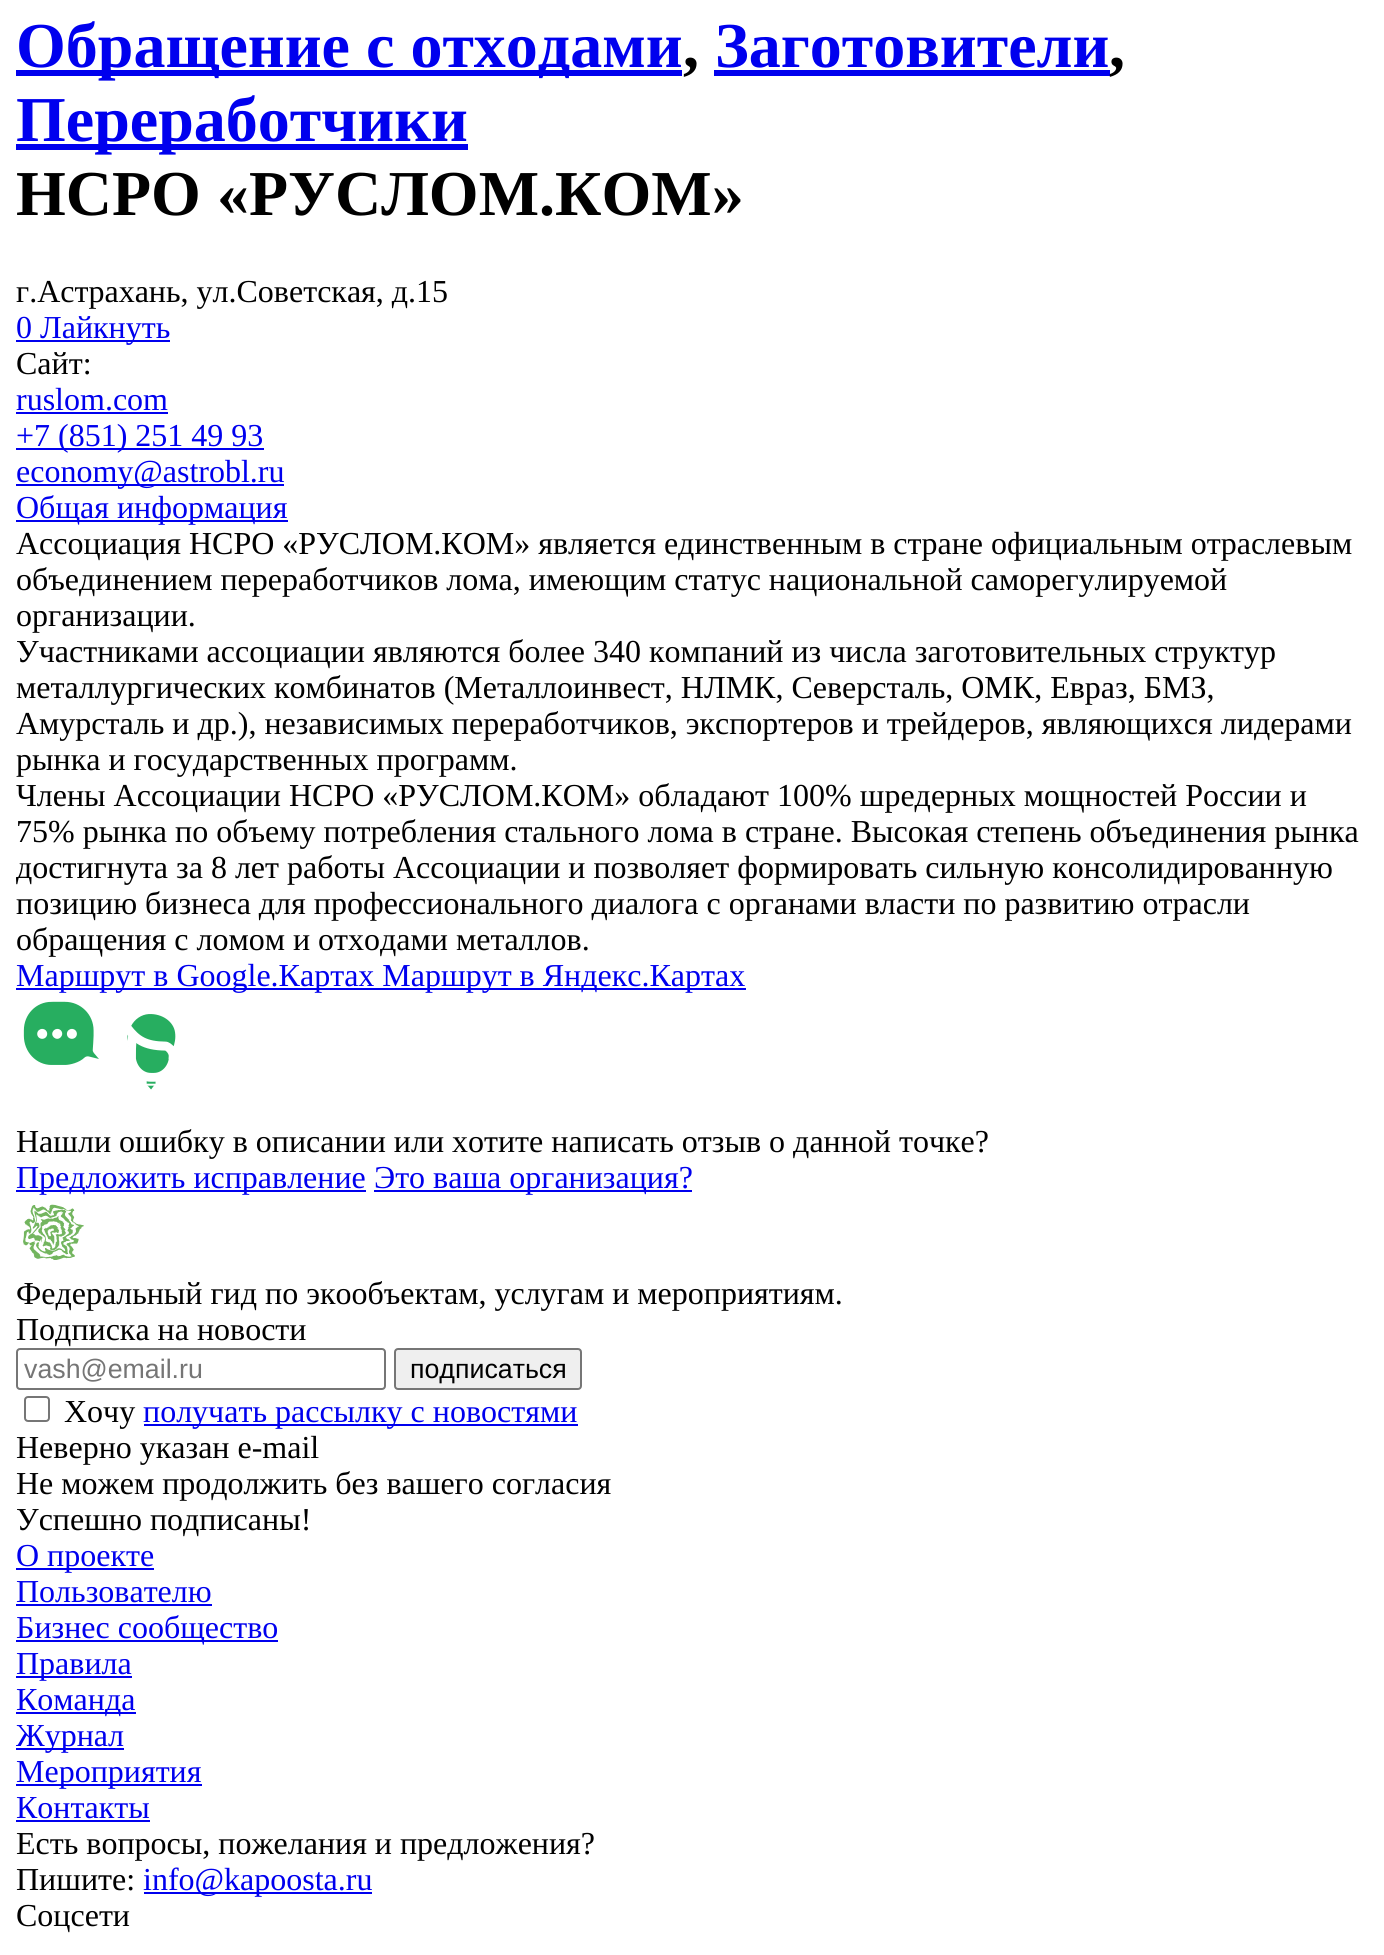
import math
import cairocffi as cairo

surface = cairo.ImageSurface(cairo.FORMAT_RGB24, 1384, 1955)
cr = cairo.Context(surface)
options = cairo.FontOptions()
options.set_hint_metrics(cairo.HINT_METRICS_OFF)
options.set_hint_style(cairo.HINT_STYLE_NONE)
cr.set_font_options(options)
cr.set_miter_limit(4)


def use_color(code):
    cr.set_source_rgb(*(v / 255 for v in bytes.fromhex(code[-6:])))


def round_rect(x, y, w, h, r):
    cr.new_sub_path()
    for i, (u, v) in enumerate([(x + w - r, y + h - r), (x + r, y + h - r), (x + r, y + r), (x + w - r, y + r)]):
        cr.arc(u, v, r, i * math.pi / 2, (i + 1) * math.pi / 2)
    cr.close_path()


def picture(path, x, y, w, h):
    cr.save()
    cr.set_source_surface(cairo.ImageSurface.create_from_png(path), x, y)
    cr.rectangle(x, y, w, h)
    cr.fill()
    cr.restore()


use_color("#ffffff")
cr.paint()
use_color("#0000ee")
cr.rectangle(16, 70, 666, 6)
cr.fill()
cr.select_font_face("Liberation Serif", cairo.FONT_SLANT_NORMAL, cairo.FONT_WEIGHT_BOLD)
cr.set_font_size(64)
cr.move_to(16, 67)
cr.show_text("Обращение с отходами")
use_color("#000000")
cr.move_to(683, 67)
cr.show_text(",")
use_color("#0000ee")
cr.move_to(715, 67)
cr.show_text("Заготовители")
cr.rectangle(714, 70, 396, 6)
cr.fill()
use_color("#000000")
cr.move_to(1109, 67)
cr.show_text(",")
use_color("#0000ee")
cr.rectangle(16, 144, 452, 6)
cr.fill()
cr.move_to(16, 141)
cr.show_text("Переработчики")
use_color("#000000")
cr.move_to(16, 215)
cr.show_text("НСРО «РУСЛОМ.КОМ»")
cr.select_font_face("Liberation Serif")
cr.set_font_size(32)
cr.move_to(16, 302)
cr.show_text("г.Астрахань, ул.Советская, д.15")
use_color("#0000ee")
cr.rectangle(16, 340, 154, 2)
cr.fill()
cr.move_to(16, 338)
cr.show_text("0 Лайкнуть")
use_color("#000000")
cr.move_to(16, 374)
cr.show_text("Сайт:")
use_color("#0000ee")
cr.move_to(16, 410)
cr.show_text("ruslom.com")
cr.rectangle(16, 412, 152, 2)
cr.fill()
cr.rectangle(16, 448, 248, 2)
cr.fill()
cr.move_to(16, 446)
cr.show_text("+7 (851) 251 49 93")
cr.rectangle(16, 484, 268, 2)
cr.fill()
cr.move_to(16, 482)
cr.show_text("economy@astrobl.ru")
cr.rectangle(16, 520, 272, 2)
cr.fill()
cr.move_to(16, 518)
cr.show_text("Общая информация")
use_color("#000000")
cr.move_to(16, 554)
cr.show_text("Ассоциация НСРО «РУСЛОМ.КОМ» является единственным в стране официальным отраслевым")
cr.move_to(16, 590)
cr.show_text("объединением переработчиков лома, имеющим статус национальной саморегулируемой")
cr.move_to(16, 626)
cr.show_text("организации.")
cr.move_to(16, 662)
cr.show_text("Участниками ассоциации являются более 340 компаний из числа заготовительных структур")
cr.move_to(16, 698)
cr.show_text("металлургических комбинатов (Металлоинвест, НЛМК, Северсталь, ОМК, Евраз, БМЗ,")
cr.move_to(16, 734)
cr.show_text("Амурсталь и др.), независимых переработчиков, экспортеров и трейдеров, являющихся лидерами")
cr.move_to(16, 770)
cr.show_text("рынка и государственных программ.")
cr.move_to(16, 806)
cr.show_text("Члены Ассоциации НСРО «РУСЛОМ.КОМ» обладают 100% шредерных мощностей России и")
cr.move_to(16, 842)
cr.show_text("75% рынка по объему потребления стального лома в стране. Высокая степень объединения рынка")
cr.move_to(16, 878)
cr.show_text("достигнута за 8 лет работы Ассоциации и позволяет формировать сильную консолидированную")
cr.move_to(16, 914)
cr.show_text("позицию бизнеса для профессионального диалога с органами власти по развитию отрасли")
cr.move_to(16, 950)
cr.show_text("обращения с ломом и отходами металлов.")
use_color("#0000ee")
cr.rectangle(16, 988, 730, 2)
cr.fill()
cr.move_to(16, 986)
cr.show_text("Маршрут в Google.Картах Маршрут в Яндекс.Картах")
picture("img1.png", 23, 1001, 153, 89)
use_color("#000000")
cr.move_to(16, 1152)
cr.show_text("Нашли ошибку в описании или хотите написать отзыв о данной точке?")
use_color("#0000ee")
cr.rectangle(16, 1190, 350, 2)
cr.fill()
cr.move_to(16, 1188)
cr.show_text("Предложить исправление")
cr.rectangle(374, 1190, 318, 2)
cr.fill()
cr.move_to(374, 1188)
cr.show_text("Это ваша организация?")
picture("img2.png", 23, 1204, 61, 56)
use_color("#000000")
cr.move_to(16, 1304)
cr.show_text("Федеральный гид по экообъектам, услугам и мероприятиям.")
cr.move_to(16, 1340)
cr.show_text("Подписка на новости")
round_rect(17, 1349, 368, 40, 3)
use_color("#767676")
cr.stroke()
cr.select_font_face("Liberation Sans")
cr.set_font_size(26.75)
use_color("#757575")
cr.move_to(24, 1378)
cr.show_text("vash@email.ru")
use_color("#efefef")
round_rect(395, 1349, 186, 40, 3)
cr.fill_preserve()
use_color("#767676")
cr.stroke()
use_color("#000000")
cr.move_to(410, 1378)
cr.show_text("подписаться")
round_rect(25, 1397, 24, 24, 3)
use_color("#767676")
cr.stroke()
cr.select_font_face("Liberation Serif")
cr.set_font_size(32)
use_color("#000000")
cr.move_to(64, 1422)
cr.show_text("Хочу")
use_color("#0000ee")
cr.rectangle(144, 1424, 434, 2)
cr.fill()
cr.move_to(143, 1422)
cr.show_text("получать рассылку с новостями")
use_color("#000000")
cr.move_to(16, 1458)
cr.show_text("Неверно указан e-mail")
cr.move_to(16, 1494)
cr.show_text("Не можем продолжить без вашего согласия")
cr.move_to(16, 1530)
cr.show_text("Успешно подписаны!")
use_color("#0000ee")
cr.rectangle(16, 1568, 138, 2)
cr.fill()
cr.move_to(16, 1566)
cr.show_text("О проекте")
cr.move_to(16, 1602)
cr.show_text("Пользователю")
cr.rectangle(16, 1604, 196, 2)
cr.fill()
cr.rectangle(16, 1640, 262, 2)
cr.fill()
cr.move_to(16, 1638)
cr.show_text("Бизнес сообщество")
cr.rectangle(16, 1676, 116, 2)
cr.fill()
cr.move_to(16, 1674)
cr.show_text("Правила")
cr.rectangle(16, 1712, 120, 2)
cr.fill()
cr.move_to(16, 1710)
cr.show_text("Команда")
cr.rectangle(16, 1748, 108, 2)
cr.fill()
cr.move_to(16, 1746)
cr.show_text("Журнал")
cr.rectangle(16, 1784, 186, 2)
cr.fill()
cr.move_to(16, 1782)
cr.show_text("Мероприятия")
cr.move_to(16, 1818)
cr.show_text("Контакты")
cr.rectangle(16, 1820, 134, 2)
cr.fill()
use_color("#000000")
cr.move_to(16, 1854)
cr.show_text("Есть вопросы, пожелания и предложения?")
cr.move_to(16, 1890)
cr.show_text("Пишите:")
use_color("#0000ee")
cr.rectangle(144, 1892, 228, 2)
cr.fill()
cr.move_to(143, 1890)
cr.show_text("info@kapoosta.ru")
use_color("#000000")
cr.move_to(16, 1926)
cr.show_text("Соцсети")
surface.write_to_png("result.png")
